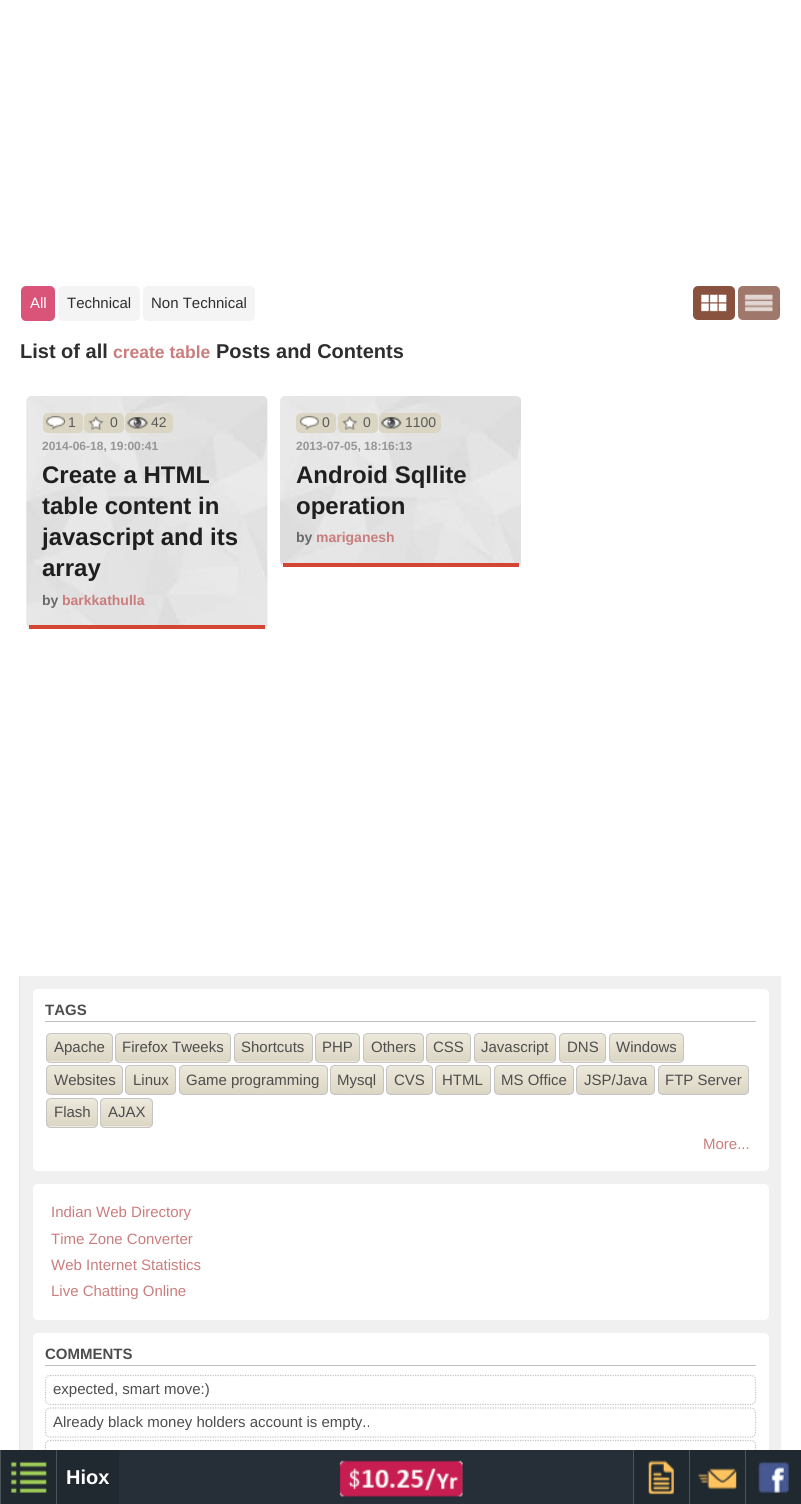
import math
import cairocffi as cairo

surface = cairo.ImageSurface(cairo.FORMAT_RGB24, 801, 1504)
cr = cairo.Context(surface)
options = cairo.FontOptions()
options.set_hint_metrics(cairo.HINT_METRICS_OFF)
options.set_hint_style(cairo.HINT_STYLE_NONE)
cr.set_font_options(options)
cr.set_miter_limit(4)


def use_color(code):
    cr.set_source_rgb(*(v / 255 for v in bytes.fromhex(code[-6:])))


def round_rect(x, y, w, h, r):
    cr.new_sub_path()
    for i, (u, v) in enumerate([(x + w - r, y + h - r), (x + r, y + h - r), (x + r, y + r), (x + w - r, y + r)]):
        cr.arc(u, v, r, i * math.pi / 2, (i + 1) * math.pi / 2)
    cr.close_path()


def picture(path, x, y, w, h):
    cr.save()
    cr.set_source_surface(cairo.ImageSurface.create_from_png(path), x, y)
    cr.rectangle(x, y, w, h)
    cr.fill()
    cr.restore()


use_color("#ffffff")
cr.paint()
use_color("#da5479")
round_rect(21, 286, 34, 35, 5)
cr.fill()
cr.select_font_face("Liberation Sans")
cr.set_font_size(15)
use_color("#ffffff")
cr.move_to(30, 308)
cr.show_text("All")
use_color("#f4f4f4")
round_rect(58, 286, 82, 35, 5)
cr.fill()
use_color("#2e2e2e")
cr.move_to(67, 308)
cr.show_text("Technical")
use_color("#f4f4f4")
round_rect(143, 286, 112, 35, 5)
cr.fill()
use_color("#2e2e2e")
cr.move_to(151, 308)
cr.show_text("Non Technical")
use_color("#89523f")
round_rect(693, 286, 42, 34, 5)
cr.fill()
picture("img1.png", 701, 294, 26, 18)
use_color("#d5d5d5")
round_rect(738, 286, 42, 34, 5)
cr.fill()
cr.set_source_rgba(0.537, 0.322, 0.247, 0.7)
round_rect(738, 286, 42, 34, 5)
cr.fill()
picture("img2.png", 744, 294, 36, 18)
cr.select_font_face("Liberation Sans", cairo.FONT_SLANT_NORMAL, cairo.FONT_WEIGHT_BOLD)
cr.set_font_size(20)
use_color("#2e2e2e")
cr.move_to(20, 358)
cr.show_text("List of all")
cr.set_font_size(17.5)
use_color("#cb7d7d")
cr.move_to(113, 358)
cr.show_text("create table")
cr.set_font_size(20)
use_color("#2e2e2e")
cr.move_to(216, 358)
cr.show_text("Posts and Contents")
use_color("#f8f8f8")
round_rect(26, 396, 242, 233, 5)
cr.fill()
picture("img3.png", 26, 396, 242, 232)
use_color("#d24633")
cr.rectangle(29, 625, 236, 4)
cr.fill()
use_color("#dbd5c3")
round_rect(43, 413, 40, 20, 5)
cr.fill()
picture("img4.png", 46, 415, 19, 15)
cr.select_font_face("Liberation Sans")
cr.set_font_size(14)
use_color("#595959")
cr.move_to(68, 427)
cr.show_text("1")
use_color("#dbd5c3")
round_rect(84, 413, 40, 20, 5)
cr.fill()
picture("img5.png", 88, 416, 16, 14)
use_color("#595959")
cr.move_to(110, 427)
cr.show_text("0")
use_color("#dbd5c3")
round_rect(125, 413, 48, 20, 5)
cr.fill()
picture("img6.png", 127, 417, 21, 12)
use_color("#595959")
cr.move_to(151, 427)
cr.show_text("42")
cr.select_font_face("Liberation Sans", cairo.FONT_SLANT_NORMAL, cairo.FONT_WEIGHT_BOLD)
cr.set_font_size(12)
use_color("#959595")
cr.move_to(42, 450)
cr.show_text("2014-06-18, 19:00:41")
cr.set_font_size(24)
use_color("#1f1f1f")
cr.move_to(42, 483)
cr.show_text("Create a HTML")
cr.move_to(42, 514)
cr.show_text("table content in")
cr.move_to(42, 545)
cr.show_text("javascript and its")
cr.move_to(42, 576)
cr.show_text("array")
cr.set_font_size(14)
use_color("#696969")
cr.move_to(42, 605)
cr.show_text("by")
use_color("#cb7d7d")
cr.move_to(62, 605)
cr.show_text("barkkathulla")
picture("img7.png", 280, 396, 241, 170)
use_color("#d24633")
cr.rectangle(283, 563, 236, 4)
cr.fill()
use_color("#dbd5c3")
round_rect(296, 413, 40, 20, 5)
cr.fill()
picture("img8.png", 299, 415, 20, 15)
cr.select_font_face("Liberation Sans")
use_color("#595959")
cr.move_to(322, 427)
cr.show_text("0")
use_color("#dbd5c3")
round_rect(338, 413, 40, 20, 5)
cr.fill()
picture("img9.png", 342, 416, 16, 14)
use_color("#595959")
cr.move_to(363, 427)
cr.show_text("0")
use_color("#dbd5c3")
round_rect(379, 413, 62, 20, 5)
cr.fill()
picture("img10.png", 381, 417, 21, 12)
use_color("#595959")
cr.move_to(405, 427)
cr.show_text("1100")
cr.select_font_face("Liberation Sans", cairo.FONT_SLANT_NORMAL, cairo.FONT_WEIGHT_BOLD)
cr.set_font_size(12)
use_color("#959595")
cr.move_to(296, 450)
cr.show_text("2013-07-05, 18:16:13")
cr.set_font_size(24)
use_color("#1f1f1f")
cr.move_to(296, 483)
cr.show_text("Android Sqllite")
cr.move_to(296, 514)
cr.show_text("operation")
cr.set_font_size(14)
use_color("#696969")
cr.move_to(296, 542)
cr.show_text("by")
use_color("#cb7d7d")
cr.move_to(316, 542)
cr.show_text("mariganesh")
use_color("#f0f0f0")
cr.rectangle(20, 976, 761, 474)
cr.fill()
use_color("#e6e6e6")
cr.rectangle(19, 976, 1, 474)
cr.fill()
use_color("#ffffff")
round_rect(33, 989, 736, 182, 5)
cr.fill()
use_color("#bfbfbf")
cr.rectangle(45, 1021, 711, 1)
cr.fill()
cr.set_font_size(15)
use_color("#4d4d4d")
cr.move_to(45, 1015)
cr.show_text("TAGS")
cr.save()
round_rect(46, 1033, 67, 30, 5)
cr.clip()
gradient = cairo.LinearGradient(79, 1034, 79, 1061)
gradient.add_color_stop_rgba(0, 0.929, 0.914, 0.859, 1)
gradient.add_color_stop_rgba(1, 0.863, 0.839, 0.769, 1)
cr.set_source(gradient)
cr.rectangle(46, 1034, 67, 27)
cr.fill()
gradient = cairo.LinearGradient(79, 1061, 79, 1089)
gradient.add_color_stop_rgba(0, 0.929, 0.914, 0.859, 1)
gradient.add_color_stop_rgba(1, 0.863, 0.839, 0.769, 1)
cr.set_source(gradient)
cr.rectangle(46, 1061, 67, 2)
cr.fill()
cr.restore()
round_rect(46.5, 1033.5, 66, 29, 4.5)
use_color("#c4c4c4")
cr.set_line_width(1)
cr.stroke()
cr.select_font_face("Liberation Sans")
use_color("#4d4d4d")
cr.move_to(54, 1052)
cr.show_text("Apache")
cr.save()
round_rect(115, 1033, 116, 30, 5)
cr.clip()
gradient = cairo.LinearGradient(173, 1034, 173, 1061)
gradient.add_color_stop_rgba(0, 0.929, 0.914, 0.859, 1)
gradient.add_color_stop_rgba(1, 0.863, 0.839, 0.769, 1)
cr.set_source(gradient)
cr.rectangle(115, 1034, 116, 27)
cr.fill()
gradient = cairo.LinearGradient(173, 1061, 173, 1089)
gradient.add_color_stop_rgba(0, 0.929, 0.914, 0.859, 1)
gradient.add_color_stop_rgba(1, 0.863, 0.839, 0.769, 1)
cr.set_source(gradient)
cr.rectangle(115, 1061, 116, 2)
cr.fill()
cr.restore()
round_rect(115.5, 1033.5, 115, 29, 4.5)
use_color("#c4c4c4")
cr.stroke()
use_color("#4d4d4d")
cr.move_to(122, 1052)
cr.show_text("Firefox Tweeks")
cr.save()
round_rect(234, 1033, 79, 30, 5)
cr.clip()
gradient = cairo.LinearGradient(273, 1034, 273, 1061)
gradient.add_color_stop_rgba(0, 0.929, 0.914, 0.859, 1)
gradient.add_color_stop_rgba(1, 0.863, 0.839, 0.769, 1)
cr.set_source(gradient)
cr.rectangle(234, 1034, 79, 27)
cr.fill()
gradient = cairo.LinearGradient(273, 1061, 273, 1089)
gradient.add_color_stop_rgba(0, 0.929, 0.914, 0.859, 1)
gradient.add_color_stop_rgba(1, 0.863, 0.839, 0.769, 1)
cr.set_source(gradient)
cr.rectangle(234, 1061, 79, 2)
cr.fill()
cr.restore()
round_rect(234.5, 1033.5, 78, 29, 4.5)
use_color("#c4c4c4")
cr.stroke()
use_color("#4d4d4d")
cr.move_to(241, 1052)
cr.show_text("Shortcuts")
cr.save()
round_rect(315, 1033, 45, 30, 5)
cr.clip()
gradient = cairo.LinearGradient(338, 1034, 338, 1061)
gradient.add_color_stop_rgba(0, 0.929, 0.914, 0.859, 1)
gradient.add_color_stop_rgba(1, 0.863, 0.839, 0.769, 1)
cr.set_source(gradient)
cr.rectangle(315, 1034, 45, 27)
cr.fill()
gradient = cairo.LinearGradient(338, 1061, 338, 1089)
gradient.add_color_stop_rgba(0, 0.929, 0.914, 0.859, 1)
gradient.add_color_stop_rgba(1, 0.863, 0.839, 0.769, 1)
cr.set_source(gradient)
cr.rectangle(315, 1061, 45, 2)
cr.fill()
cr.restore()
round_rect(315.5, 1033.5, 44, 29, 4.5)
use_color("#c4c4c4")
cr.stroke()
use_color("#4d4d4d")
cr.move_to(322, 1052)
cr.show_text("PHP")
cr.save()
round_rect(363, 1033, 61, 30, 5)
cr.clip()
gradient = cairo.LinearGradient(393, 1034, 393, 1061)
gradient.add_color_stop_rgba(0, 0.929, 0.914, 0.859, 1)
gradient.add_color_stop_rgba(1, 0.863, 0.839, 0.769, 1)
cr.set_source(gradient)
cr.rectangle(363, 1034, 61, 27)
cr.fill()
gradient = cairo.LinearGradient(393, 1061, 393, 1089)
gradient.add_color_stop_rgba(0, 0.929, 0.914, 0.859, 1)
gradient.add_color_stop_rgba(1, 0.863, 0.839, 0.769, 1)
cr.set_source(gradient)
cr.rectangle(363, 1061, 61, 2)
cr.fill()
cr.restore()
round_rect(363.5, 1033.5, 60, 29, 4.5)
use_color("#c4c4c4")
cr.stroke()
use_color("#4d4d4d")
cr.move_to(371, 1052)
cr.show_text("Others")
cr.save()
round_rect(426, 1033, 45, 30, 5)
cr.clip()
gradient = cairo.LinearGradient(449, 1034, 449, 1061)
gradient.add_color_stop_rgba(0, 0.929, 0.914, 0.859, 1)
gradient.add_color_stop_rgba(1, 0.863, 0.839, 0.769, 1)
cr.set_source(gradient)
cr.rectangle(426, 1034, 45, 27)
cr.fill()
gradient = cairo.LinearGradient(449, 1061, 449, 1089)
gradient.add_color_stop_rgba(0, 0.929, 0.914, 0.859, 1)
gradient.add_color_stop_rgba(1, 0.863, 0.839, 0.769, 1)
cr.set_source(gradient)
cr.rectangle(426, 1061, 45, 2)
cr.fill()
cr.restore()
round_rect(426.5, 1033.5, 44, 29, 4.5)
use_color("#c4c4c4")
cr.stroke()
use_color("#4d4d4d")
cr.move_to(433, 1052)
cr.show_text("CSS")
cr.save()
round_rect(474, 1033, 82, 30, 5)
cr.clip()
gradient = cairo.LinearGradient(515, 1034, 515, 1061)
gradient.add_color_stop_rgba(0, 0.929, 0.914, 0.859, 1)
gradient.add_color_stop_rgba(1, 0.863, 0.839, 0.769, 1)
cr.set_source(gradient)
cr.rectangle(474, 1034, 82, 27)
cr.fill()
gradient = cairo.LinearGradient(515, 1061, 515, 1089)
gradient.add_color_stop_rgba(0, 0.929, 0.914, 0.859, 1)
gradient.add_color_stop_rgba(1, 0.863, 0.839, 0.769, 1)
cr.set_source(gradient)
cr.rectangle(474, 1061, 82, 2)
cr.fill()
cr.restore()
round_rect(474.5, 1033.5, 81, 29, 4.5)
use_color("#c4c4c4")
cr.stroke()
use_color("#4d4d4d")
cr.move_to(481, 1052)
cr.show_text("Javascript")
cr.save()
round_rect(559, 1033, 47, 30, 5)
cr.clip()
gradient = cairo.LinearGradient(583, 1034, 583, 1061)
gradient.add_color_stop_rgba(0, 0.929, 0.914, 0.859, 1)
gradient.add_color_stop_rgba(1, 0.863, 0.839, 0.769, 1)
cr.set_source(gradient)
cr.rectangle(559, 1034, 47, 27)
cr.fill()
gradient = cairo.LinearGradient(583, 1061, 583, 1089)
gradient.add_color_stop_rgba(0, 0.929, 0.914, 0.859, 1)
gradient.add_color_stop_rgba(1, 0.863, 0.839, 0.769, 1)
cr.set_source(gradient)
cr.rectangle(559, 1061, 47, 2)
cr.fill()
cr.restore()
round_rect(559.5, 1033.5, 46, 29, 4.5)
use_color("#c4c4c4")
cr.stroke()
use_color("#4d4d4d")
cr.move_to(567, 1052)
cr.show_text("DNS")
cr.save()
round_rect(609, 1033, 75, 30, 5)
cr.clip()
gradient = cairo.LinearGradient(646, 1034, 646, 1061)
gradient.add_color_stop_rgba(0, 0.929, 0.914, 0.859, 1)
gradient.add_color_stop_rgba(1, 0.863, 0.839, 0.769, 1)
cr.set_source(gradient)
cr.rectangle(609, 1034, 75, 27)
cr.fill()
gradient = cairo.LinearGradient(646, 1061, 646, 1089)
gradient.add_color_stop_rgba(0, 0.929, 0.914, 0.859, 1)
gradient.add_color_stop_rgba(1, 0.863, 0.839, 0.769, 1)
cr.set_source(gradient)
cr.rectangle(609, 1061, 75, 2)
cr.fill()
cr.restore()
round_rect(609.5, 1033.5, 74, 29, 4.5)
use_color("#c4c4c4")
cr.stroke()
use_color("#4d4d4d")
cr.move_to(616, 1052)
cr.show_text("Windows")
cr.save()
round_rect(46, 1065, 77, 30, 5)
cr.clip()
gradient = cairo.LinearGradient(84, 1066, 84, 1094)
gradient.add_color_stop_rgba(0, 0.929, 0.914, 0.859, 1)
gradient.add_color_stop_rgba(1, 0.863, 0.839, 0.769, 1)
cr.set_source(gradient)
cr.rectangle(46, 1066, 77, 28)
cr.fill()
cr.restore()
round_rect(46.5, 1065.5, 76, 29, 4.5)
use_color("#c4c4c4")
cr.stroke()
use_color("#4d4d4d")
cr.move_to(54, 1085)
cr.show_text("Websites")
cr.save()
round_rect(125, 1065, 51, 30, 5)
cr.clip()
gradient = cairo.LinearGradient(151, 1066, 151, 1094)
gradient.add_color_stop_rgba(0, 0.929, 0.914, 0.859, 1)
gradient.add_color_stop_rgba(1, 0.863, 0.839, 0.769, 1)
cr.set_source(gradient)
cr.rectangle(125, 1066, 51, 28)
cr.fill()
cr.restore()
round_rect(125.5, 1065.5, 50, 29, 4.5)
use_color("#c4c4c4")
cr.stroke()
use_color("#4d4d4d")
cr.move_to(133, 1085)
cr.show_text("Linux")
cr.save()
round_rect(179, 1065, 149, 30, 5)
cr.clip()
gradient = cairo.LinearGradient(253, 1066, 253, 1094)
gradient.add_color_stop_rgba(0, 0.929, 0.914, 0.859, 1)
gradient.add_color_stop_rgba(1, 0.863, 0.839, 0.769, 1)
cr.set_source(gradient)
cr.rectangle(179, 1066, 149, 28)
cr.fill()
cr.restore()
round_rect(179.5, 1065.5, 148, 29, 4.5)
use_color("#c4c4c4")
cr.stroke()
use_color("#4d4d4d")
cr.move_to(186, 1085)
cr.show_text("Game programming")
cr.save()
round_rect(330, 1065, 54, 30, 5)
cr.clip()
gradient = cairo.LinearGradient(357, 1066, 357, 1094)
gradient.add_color_stop_rgba(0, 0.929, 0.914, 0.859, 1)
gradient.add_color_stop_rgba(1, 0.863, 0.839, 0.769, 1)
cr.set_source(gradient)
cr.rectangle(330, 1066, 54, 28)
cr.fill()
cr.restore()
round_rect(330.5, 1065.5, 53, 29, 4.5)
use_color("#c4c4c4")
cr.stroke()
use_color("#4d4d4d")
cr.move_to(337, 1085)
cr.show_text("Mysql")
cr.save()
round_rect(386, 1065, 47, 30, 5)
cr.clip()
gradient = cairo.LinearGradient(409, 1066, 409, 1094)
gradient.add_color_stop_rgba(0, 0.929, 0.914, 0.859, 1)
gradient.add_color_stop_rgba(1, 0.863, 0.839, 0.769, 1)
cr.set_source(gradient)
cr.rectangle(386, 1066, 47, 28)
cr.fill()
cr.restore()
round_rect(386.5, 1065.5, 46, 29, 4.5)
use_color("#c4c4c4")
cr.stroke()
use_color("#4d4d4d")
cr.move_to(394, 1085)
cr.show_text("CVS")
cr.save()
round_rect(435, 1065, 56, 30, 5)
cr.clip()
gradient = cairo.LinearGradient(463, 1066, 463, 1094)
gradient.add_color_stop_rgba(0, 0.929, 0.914, 0.859, 1)
gradient.add_color_stop_rgba(1, 0.863, 0.839, 0.769, 1)
cr.set_source(gradient)
cr.rectangle(435, 1066, 56, 28)
cr.fill()
cr.restore()
round_rect(435.5, 1065.5, 55, 29, 4.5)
use_color("#c4c4c4")
cr.stroke()
use_color("#4d4d4d")
cr.move_to(442, 1085)
cr.show_text("HTML")
cr.save()
round_rect(494, 1065, 80, 30, 5)
cr.clip()
gradient = cairo.LinearGradient(534, 1066, 534, 1094)
gradient.add_color_stop_rgba(0, 0.929, 0.914, 0.859, 1)
gradient.add_color_stop_rgba(1, 0.863, 0.839, 0.769, 1)
cr.set_source(gradient)
cr.rectangle(494, 1066, 80, 28)
cr.fill()
cr.restore()
round_rect(494.5, 1065.5, 79, 29, 4.5)
use_color("#c4c4c4")
cr.stroke()
use_color("#4d4d4d")
cr.move_to(501, 1085)
cr.show_text("MS Office")
cr.save()
round_rect(576, 1065, 79, 30, 5)
cr.clip()
gradient = cairo.LinearGradient(616, 1066, 616, 1094)
gradient.add_color_stop_rgba(0, 0.929, 0.914, 0.859, 1)
gradient.add_color_stop_rgba(1, 0.863, 0.839, 0.769, 1)
cr.set_source(gradient)
cr.rectangle(576, 1066, 79, 28)
cr.fill()
cr.restore()
round_rect(576.5, 1065.5, 78, 29, 4.5)
use_color("#c4c4c4")
cr.stroke()
use_color("#4d4d4d")
cr.move_to(584, 1085)
cr.show_text("JSP/Java")
cr.save()
round_rect(658, 1065, 91, 30, 5)
cr.clip()
gradient = cairo.LinearGradient(703, 1066, 703, 1094)
gradient.add_color_stop_rgba(0, 0.929, 0.914, 0.859, 1)
gradient.add_color_stop_rgba(1, 0.863, 0.839, 0.769, 1)
cr.set_source(gradient)
cr.rectangle(658, 1066, 91, 28)
cr.fill()
cr.restore()
round_rect(658.5, 1065.5, 90, 29, 4.5)
use_color("#c4c4c4")
cr.stroke()
use_color("#4d4d4d")
cr.move_to(665, 1085)
cr.show_text("FTP Server")
cr.save()
round_rect(46, 1098, 52, 30, 5)
cr.clip()
gradient = cairo.LinearGradient(72, 1099, 72, 1126)
gradient.add_color_stop_rgba(0, 0.929, 0.914, 0.859, 1)
gradient.add_color_stop_rgba(1, 0.863, 0.839, 0.769, 1)
cr.set_source(gradient)
cr.rectangle(46, 1099, 52, 27)
cr.fill()
gradient = cairo.LinearGradient(72, 1126, 72, 1154)
gradient.add_color_stop_rgba(0, 0.929, 0.914, 0.859, 1)
gradient.add_color_stop_rgba(1, 0.863, 0.839, 0.769, 1)
cr.set_source(gradient)
cr.rectangle(46, 1126, 52, 2)
cr.fill()
cr.restore()
round_rect(46.5, 1098.5, 51, 29, 4.5)
use_color("#c4c4c4")
cr.stroke()
use_color("#4d4d4d")
cr.move_to(54, 1117)
cr.show_text("Flash")
cr.save()
round_rect(100, 1098, 53, 30, 5)
cr.clip()
gradient = cairo.LinearGradient(126, 1099, 126, 1126)
gradient.add_color_stop_rgba(0, 0.929, 0.914, 0.859, 1)
gradient.add_color_stop_rgba(1, 0.863, 0.839, 0.769, 1)
cr.set_source(gradient)
cr.rectangle(100, 1099, 53, 27)
cr.fill()
gradient = cairo.LinearGradient(126, 1126, 126, 1154)
gradient.add_color_stop_rgba(0, 0.929, 0.914, 0.859, 1)
gradient.add_color_stop_rgba(1, 0.863, 0.839, 0.769, 1)
cr.set_source(gradient)
cr.rectangle(100, 1126, 53, 2)
cr.fill()
cr.restore()
round_rect(100.5, 1098.5, 52, 29, 4.5)
use_color("#c4c4c4")
cr.stroke()
use_color("#4d4d4d")
cr.move_to(108, 1117)
cr.show_text("AJAX")
use_color("#cb7d7d")
cr.move_to(703, 1149)
cr.show_text("More...")
use_color("#ffffff")
round_rect(33, 1184, 736, 136, 5)
cr.fill()
use_color("#cb7d7d")
cr.move_to(51, 1217)
cr.show_text("Indian Web Directory")
cr.move_to(51, 1244)
cr.show_text("Time Zone Converter")
cr.move_to(51, 1270)
cr.show_text("Web Internet Statistics")
cr.move_to(51, 1296)
cr.show_text("Live Chatting Online")
use_color("#ffffff")
round_rect(33, 1333, 736, 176, 5)
cr.fill()
use_color("#bfbfbf")
cr.rectangle(45, 1365, 711, 1)
cr.fill()
cr.select_font_face("Liberation Sans", cairo.FONT_SLANT_NORMAL, cairo.FONT_WEIGHT_BOLD)
use_color("#4d4d4d")
cr.move_to(45, 1359)
cr.show_text("COMMENTS")
cr.new_path()
cr.move_to(50, 1375.5)
cr.line_to(751, 1375.5)
cr.curve_to(753.5, 1375.5, 755.5, 1377.5, 755.5, 1380)
cr.line_to(755.5, 1400)
cr.curve_to(755.5, 1402.5, 753.5, 1404.5, 751, 1404.5)
cr.line_to(50, 1404.5)
cr.curve_to(47.5, 1404.5, 45.5, 1402.5, 45.5, 1400)
cr.line_to(45.5, 1380)
cr.curve_to(45.5, 1377.5, 47.5, 1375.5, 50, 1375.5)
cr.close_path()
use_color("#c4c4c4")
cr.set_line_width(1.2)
cr.set_dash([1.25, 1.25])
cr.stroke()
cr.select_font_face("Liberation Sans")
use_color("#4d4d4d")
cr.move_to(53, 1394)
cr.show_text("expected, smart move:)")
cr.new_path()
cr.move_to(50, 1408)
cr.line_to(751, 1408)
cr.curve_to(753.5, 1408, 755.5, 1410, 755.5, 1412.5)
cr.line_to(755.5, 1432.5)
cr.curve_to(755.5, 1435, 753.5, 1437, 751, 1437)
cr.line_to(50, 1437)
cr.curve_to(47.5, 1437, 45.5, 1435, 45.5, 1432.5)
cr.line_to(45.5, 1412.5)
cr.curve_to(45.5, 1410, 47.5, 1408, 50, 1408)
cr.close_path()
use_color("#c4c4c4")
cr.stroke()
use_color("#4d4d4d")
cr.move_to(53, 1427)
cr.show_text("Already black money holders account is empty..")
cr.new_path()
cr.move_to(50, 1440.5)
cr.line_to(751, 1440.5)
cr.curve_to(753.5, 1440.5, 755.5, 1442.5, 755.5, 1445)
cr.line_to(755.5, 1465)
cr.curve_to(755.5, 1467.5, 753.5, 1469.5, 751, 1469.5)
cr.line_to(50, 1469.5)
cr.curve_to(47.5, 1469.5, 45.5, 1467.5, 45.5, 1465)
cr.line_to(45.5, 1445)
cr.curve_to(45.5, 1442.5, 47.5, 1440.5, 50, 1440.5)
cr.close_path()
use_color("#c4c4c4")
cr.stroke()
use_color("#262f37")
cr.rectangle(119, 1450, 514, 54)
cr.fill()
use_color("#212930")
cr.rectangle(1, 1450, 55, 54)
cr.fill()
use_color("#4d5459")
cr.rectangle(0, 1450, 1, 54)
cr.fill()
picture("img11.png", 11, 1461, 36, 32)
use_color("#212930")
cr.rectangle(57, 1450, 62, 54)
cr.fill()
use_color("#4d5459")
cr.rectangle(56, 1450, 1, 54)
cr.fill()
cr.select_font_face("Liberation Sans", cairo.FONT_SLANT_NORMAL, cairo.FONT_WEIGHT_BOLD)
cr.set_font_size(20)
use_color("#ffffff")
cr.move_to(66, 1484)
cr.show_text("Hiox")
picture("img12.png", 339, 1460, 124, 37)
use_color("#212930")
cr.rectangle(634, 1450, 55, 54)
cr.fill()
use_color("#4d5459")
cr.rectangle(633, 1450, 1, 54)
cr.fill()
picture("img13.png", 648, 1460, 26, 35)
use_color("#212930")
cr.rectangle(690, 1450, 55, 54)
cr.fill()
use_color("#4d5459")
cr.rectangle(689, 1450, 1, 54)
cr.fill()
picture("img14.png", 698, 1468, 39, 22)
use_color("#212930")
cr.rectangle(746, 1450, 55, 54)
cr.fill()
use_color("#4d5459")
cr.rectangle(745, 1450, 1, 54)
cr.fill()
picture("img15.png", 758, 1461, 31, 32)
surface.write_to_png("result.png")
